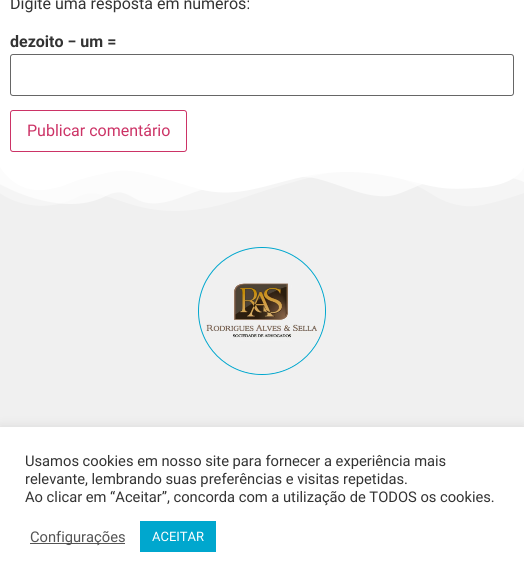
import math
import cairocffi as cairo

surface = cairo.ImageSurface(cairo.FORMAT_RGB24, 524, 582)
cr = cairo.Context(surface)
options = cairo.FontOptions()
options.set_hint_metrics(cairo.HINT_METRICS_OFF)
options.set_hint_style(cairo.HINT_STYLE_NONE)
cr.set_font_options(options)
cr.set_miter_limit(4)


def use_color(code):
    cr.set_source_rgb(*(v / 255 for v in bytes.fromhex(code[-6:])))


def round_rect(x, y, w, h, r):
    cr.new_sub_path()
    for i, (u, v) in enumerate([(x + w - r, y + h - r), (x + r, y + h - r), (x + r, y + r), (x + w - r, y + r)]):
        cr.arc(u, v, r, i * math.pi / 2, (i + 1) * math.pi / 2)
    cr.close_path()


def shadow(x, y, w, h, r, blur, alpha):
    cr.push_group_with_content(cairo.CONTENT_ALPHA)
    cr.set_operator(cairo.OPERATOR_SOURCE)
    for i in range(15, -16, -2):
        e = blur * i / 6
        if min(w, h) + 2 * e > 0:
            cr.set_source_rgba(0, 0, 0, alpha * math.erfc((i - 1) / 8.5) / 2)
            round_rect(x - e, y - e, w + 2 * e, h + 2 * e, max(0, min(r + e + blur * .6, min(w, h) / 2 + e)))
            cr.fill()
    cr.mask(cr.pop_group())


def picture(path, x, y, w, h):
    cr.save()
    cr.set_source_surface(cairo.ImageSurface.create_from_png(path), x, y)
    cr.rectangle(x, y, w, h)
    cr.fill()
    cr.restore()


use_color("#ffffff")
cr.paint()
cr.select_font_face("Roboto")
cr.set_font_size(16)
use_color("#333333")
cr.move_to(10, 9)
cr.show_text("Digite uma resposta em números:")
cr.select_font_face("Roboto", cairo.FONT_SLANT_NORMAL, cairo.FONT_WEIGHT_BOLD)
cr.move_to(10, 47)
cr.show_text("dezoito − um =")
round_rect(10.5, 54.5, 503, 41, 2.5)
use_color("#666666")
cr.set_line_width(1)
cr.stroke()
round_rect(10.5, 110.5, 176, 41, 2.5)
use_color("#cc3366")
cr.stroke()
cr.select_font_face("Roboto")
cr.move_to(27, 136)
cr.show_text("Publicar comentário")
use_color("#f0f0f0")
cr.rectangle(0, 167, 524, 260)
cr.fill()
picture("img1.png", 0, 167, 524, 44)
cr.arc(262, 311, 63.5, 0, 2 * math.pi)
use_color("#00a7ce")
cr.stroke()
picture("img2.png", 199, 248, 126, 126)
use_color("#acabab")
shadow(0, 426, 524, 155, 0, 5, 0.3)
use_color("#ffffff")
cr.rectangle(0, 427, 524, 155)
cr.fill()
cr.set_font_size(14.7)
use_color("#333333")
cr.move_to(25, 466)
cr.show_text("Usamos cookies em nosso site para fornecer a experiência mais")
cr.move_to(25, 484)
cr.show_text("relevante, lembrando suas preferências e visitas repetidas.")
cr.move_to(25, 502)
cr.show_text("Ao clicar em “Aceitar”, concorda com a utilização de TODOS os cookies.")
use_color("#545454")
cr.rectangle(30, 543, 95, 1)
cr.fill()
cr.move_to(30, 542)
cr.show_text("Configurações")
use_color("#00a7ce")
cr.rectangle(140, 521, 76, 31)
cr.fill()
cr.set_font_size(13)
use_color("#ffffff")
cr.move_to(152, 541)
cr.show_text("ACEITAR")
surface.write_to_png("result.png")
